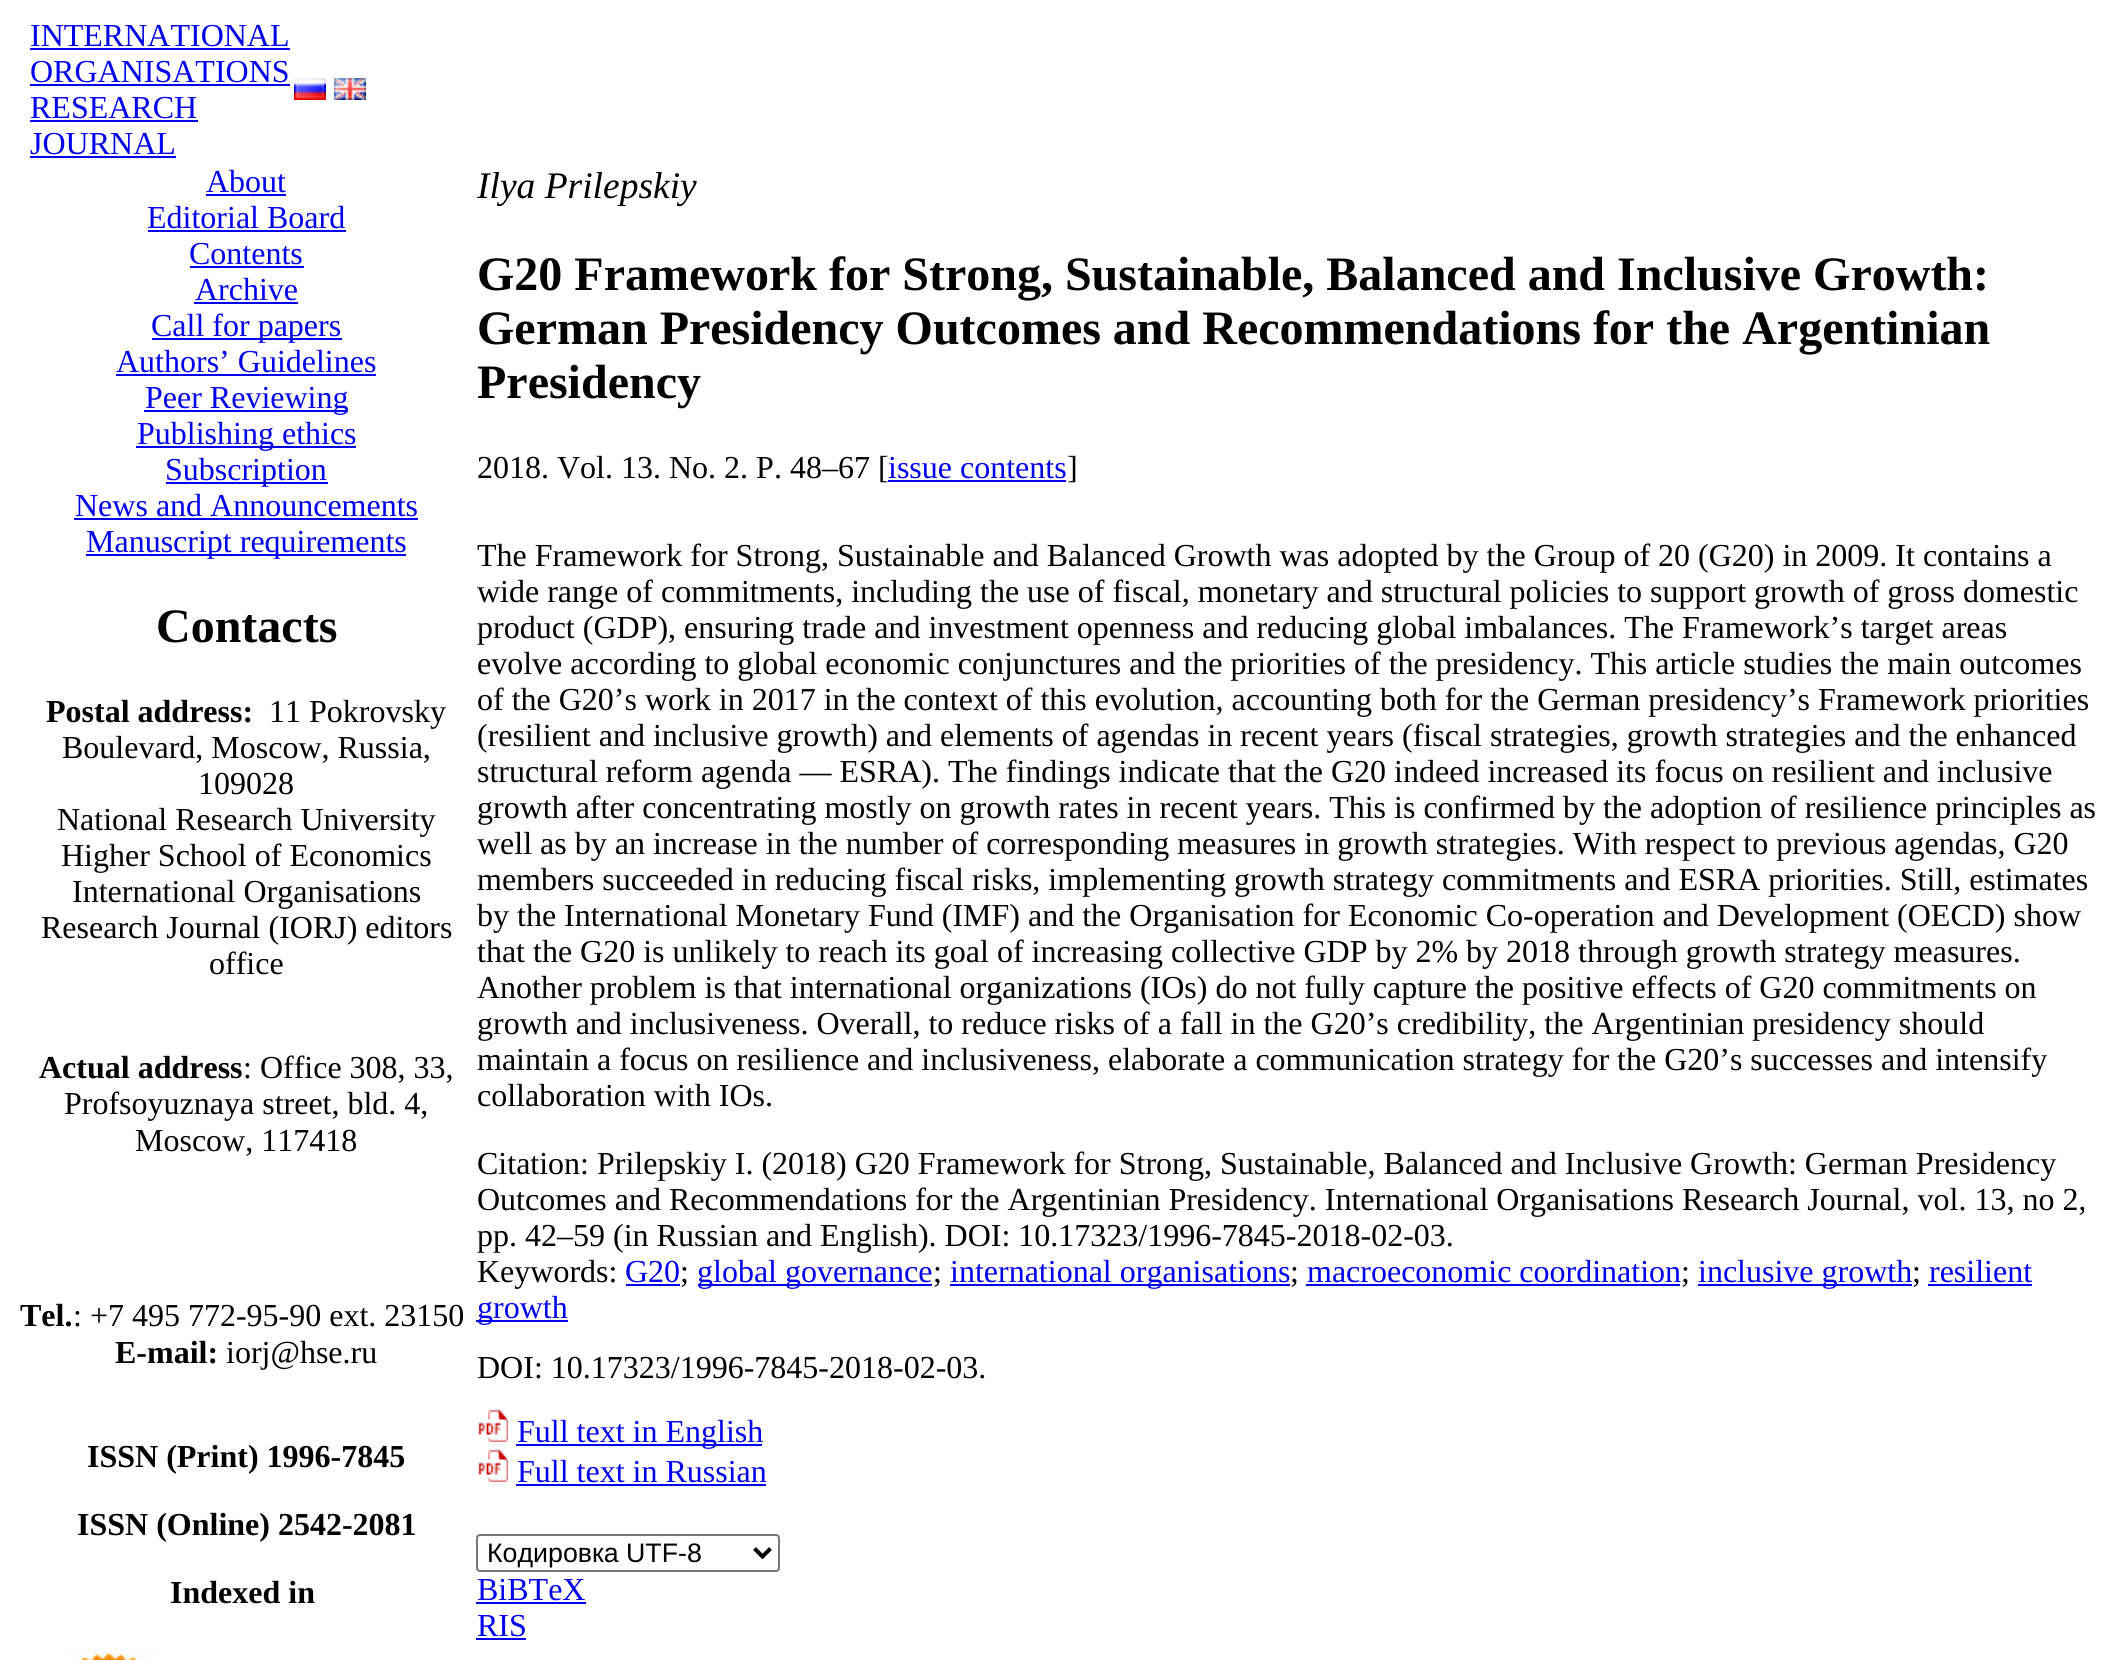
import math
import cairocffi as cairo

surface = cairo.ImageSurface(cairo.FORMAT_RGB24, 2113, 1660)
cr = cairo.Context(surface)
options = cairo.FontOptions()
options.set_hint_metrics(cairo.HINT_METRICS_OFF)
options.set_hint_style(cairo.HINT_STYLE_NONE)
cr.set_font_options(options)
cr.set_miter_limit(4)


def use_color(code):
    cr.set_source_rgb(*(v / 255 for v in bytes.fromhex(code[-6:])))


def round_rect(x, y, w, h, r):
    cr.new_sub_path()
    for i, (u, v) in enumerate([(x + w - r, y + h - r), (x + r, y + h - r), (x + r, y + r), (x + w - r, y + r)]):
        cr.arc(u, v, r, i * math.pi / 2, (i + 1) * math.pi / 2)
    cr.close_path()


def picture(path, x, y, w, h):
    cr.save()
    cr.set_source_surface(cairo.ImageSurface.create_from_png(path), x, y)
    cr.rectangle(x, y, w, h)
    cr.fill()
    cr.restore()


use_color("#ffffff")
cr.paint()
cr.select_font_face("Liberation Serif")
cr.set_font_size(32)
use_color("#0000ee")
cr.move_to(30, 46)
cr.show_text("INTERNATIONAL")
cr.rectangle(30, 48, 260, 2)
cr.fill()
cr.move_to(30, 82)
cr.show_text("ORGANISATIONS")
cr.rectangle(30, 84, 260, 2)
cr.fill()
cr.move_to(30, 118)
cr.show_text("RESEARCH")
cr.rectangle(30, 120, 168, 2)
cr.fill()
cr.move_to(30, 154)
cr.show_text("JOURNAL")
cr.rectangle(30, 156, 146, 2)
cr.fill()
picture("img1.png", 294, 78, 32, 22)
picture("img2.png", 334, 78, 32, 22)
cr.move_to(206, 192)
cr.show_text("About")
cr.rectangle(206, 194, 80, 2)
cr.fill()
cr.move_to(147, 228)
cr.show_text("Editorial Board")
cr.rectangle(148, 230, 198, 2)
cr.fill()
cr.move_to(189, 264)
cr.show_text("Contents")
cr.rectangle(190, 266, 114, 2)
cr.fill()
cr.move_to(195, 300)
cr.show_text("Аrchive")
cr.rectangle(194, 302, 104, 2)
cr.fill()
cr.rectangle(152, 338, 190, 2)
cr.fill()
cr.move_to(151, 336)
cr.show_text("Call for papers")
cr.move_to(116, 372)
cr.show_text("Authors’ Guidelines")
cr.rectangle(116, 374, 260, 2)
cr.fill()
cr.rectangle(144, 410, 204, 2)
cr.fill()
cr.move_to(145, 408)
cr.show_text("Peer Reviewing")
cr.rectangle(136, 446, 220, 2)
cr.fill()
cr.move_to(137, 444)
cr.show_text("Publishing ethics")
cr.rectangle(166, 482, 162, 2)
cr.fill()
cr.move_to(165, 480)
cr.show_text("Subscription")
cr.move_to(75, 516)
cr.show_text("News and Announcements")
cr.rectangle(74, 518, 344, 2)
cr.fill()
cr.rectangle(86, 554, 320, 2)
cr.fill()
cr.move_to(86, 552)
cr.show_text("Manuscript requirements")
cr.select_font_face("Liberation Serif", cairo.FONT_SLANT_NORMAL, cairo.FONT_WEIGHT_BOLD)
cr.set_font_size(48)
use_color("#000000")
cr.move_to(156, 642)
cr.show_text("Contacts")
cr.set_font_size(32)
cr.move_to(46, 722)
cr.show_text("Postal address:")
cr.select_font_face("Liberation Serif")
cr.move_to(269, 722)
cr.show_text("11 Pokrovsky")
cr.move_to(62, 758)
cr.show_text("Boulevard, Moscow, Russia,")
cr.move_to(198, 794)
cr.show_text("109028")
cr.move_to(57, 830)
cr.show_text("National Research University")
cr.move_to(61, 866)
cr.show_text("Higher School of Economics")
cr.move_to(72, 902)
cr.show_text("International Organisations")
cr.move_to(41, 938)
cr.show_text("Research Journal (IORJ) editors")
cr.move_to(209, 974)
cr.show_text("office")
cr.select_font_face("Liberation Serif", cairo.FONT_SLANT_NORMAL, cairo.FONT_WEIGHT_BOLD)
cr.move_to(39, 1078)
cr.show_text("Actual address")
cr.select_font_face("Liberation Serif")
cr.move_to(243, 1078)
cr.show_text(": Office 308, 33,")
cr.move_to(64, 1114)
cr.show_text("Profsoyuznaya street, bld. 4,")
cr.move_to(135, 1151)
cr.show_text("Moscow, 117418")
cr.select_font_face("Liberation Serif", cairo.FONT_SLANT_NORMAL, cairo.FONT_WEIGHT_BOLD)
cr.move_to(20, 1326)
cr.show_text("Tel.")
cr.select_font_face("Liberation Serif")
cr.move_to(73, 1326)
cr.show_text(": +7 495 772-95-90 ext. 23150")
cr.select_font_face("Liberation Serif", cairo.FONT_SLANT_NORMAL, cairo.FONT_WEIGHT_BOLD)
cr.move_to(115, 1363)
cr.show_text("E-mail:")
cr.select_font_face("Liberation Serif")
cr.move_to(226, 1363)
cr.show_text("iorj@hse.ru")
cr.select_font_face("Liberation Serif", cairo.FONT_SLANT_NORMAL, cairo.FONT_WEIGHT_BOLD)
cr.move_to(87, 1467)
cr.show_text("ISSN (Print) 1996-7845")
cr.move_to(77, 1535)
cr.show_text("ISSN (Online) 2542-2081")
cr.move_to(170, 1603)
cr.show_text("Indexed in")
picture("img3.png", 69, 1648, 84, 12)
cr.select_font_face("Liberation Serif", cairo.FONT_SLANT_ITALIC)
cr.set_font_size(37.5)
cr.move_to(477, 198)
cr.show_text("Ilya Prilepskiy")
cr.select_font_face("Liberation Serif", cairo.FONT_SLANT_NORMAL, cairo.FONT_WEIGHT_BOLD)
cr.set_font_size(48)
cr.move_to(477, 290)
cr.show_text("G20 Framework for Strong, Sustainable, Balanced and Inclusive Growth:")
cr.move_to(477, 344)
cr.show_text("German Presidency Outcomes and Recommendations for the Argentinian")
cr.move_to(477, 398)
cr.show_text("Presidency")
cr.select_font_face("Liberation Serif")
cr.set_font_size(32)
cr.move_to(477, 478)
cr.show_text("2018. Vol. 13. No. 2. P. 48–67 [")
use_color("#0000ee")
cr.move_to(888, 478)
cr.show_text("issue contents")
cr.rectangle(888, 480, 178, 2)
cr.fill()
use_color("#000000")
cr.move_to(1067, 478)
cr.show_text("]")
cr.move_to(477, 566)
cr.show_text("The Framework for Strong, Sustainable and Balanced Growth was adopted by the Group of 20 (G20) in 2009. It contains a")
cr.move_to(477, 602)
cr.show_text("wide range of commitments, including the use of fiscal, monetary and structural policies to support growth of gross domestic")
cr.move_to(477, 638)
cr.show_text("product (GDP), ensuring trade and investment openness and reducing global imbalances. The Framework’s target areas")
cr.move_to(477, 674)
cr.show_text("evolve according to global economic conjunctures and the priorities of the presidency. This article studies the main outcomes")
cr.move_to(477, 710)
cr.show_text("of the G20’s work in 2017 in the context of this evolution, accounting both for the German presidency’s Framework priorities")
cr.move_to(477, 746)
cr.show_text("(resilient and inclusive growth) and elements of agendas in recent years (fiscal strategies, growth strategies and the enhanced")
cr.move_to(477, 782)
cr.show_text("structural reform agenda — ESRA). The findings indicate that the G20 indeed increased its focus on resilient and inclusive")
cr.move_to(477, 818)
cr.show_text("growth after concentrating mostly on growth rates in recent years. This is confirmed by the adoption of resilience principles as")
cr.move_to(477, 854)
cr.show_text("well as by an increase in the number of corresponding measures in growth strategies. With respect to previous agendas, G20")
cr.move_to(477, 890)
cr.show_text("members succeeded in reducing fiscal risks, implementing growth strategy commitments and ESRA priorities. Still, estimates")
cr.move_to(477, 926)
cr.show_text("by the International Monetary Fund (IMF) and the Organisation for Economic Co-operation and Development (OECD) show")
cr.move_to(477, 962)
cr.show_text("that the G20 is unlikely to reach its goal of increasing collective GDP by 2% by 2018 through growth strategy measures.")
cr.move_to(477, 998)
cr.show_text("Another problem is that international organizations (IOs) do not fully capture the positive effects of G20 commitments on")
cr.move_to(477, 1034)
cr.show_text("growth and inclusiveness. Overall, to reduce risks of a fall in the G20’s credibility, the Argentinian presidency should")
cr.move_to(477, 1070)
cr.show_text("maintain a focus on resilience and inclusiveness, elaborate a communication strategy for the G20’s successes and intensify")
cr.move_to(477, 1106)
cr.show_text("collaboration with IOs.")
cr.move_to(477, 1174)
cr.show_text("Citation: Prilepskiy I. (2018) G20 Framework for Strong, Sustainable, Balanced and Inclusive Growth: German Presidency")
cr.move_to(477, 1210)
cr.show_text("Outcomes and Recommendations for the Argentinian Presidency. International Organisations Research Journal, vol. 13, no 2,")
cr.move_to(477, 1246)
cr.show_text("pp. 42–59 (in Russian and English). DOI: 10.17323/1996-7845-2018-02-03.")
cr.move_to(477, 1282)
cr.show_text("Keywords:")
use_color("#0000ee")
cr.move_to(625, 1282)
cr.show_text("G20")
cr.rectangle(626, 1284, 54, 2)
cr.fill()
use_color("#000000")
cr.move_to(680, 1282)
cr.show_text(";")
use_color("#0000ee")
cr.rectangle(698, 1284, 234, 2)
cr.fill()
cr.move_to(697, 1282)
cr.show_text("global governance")
use_color("#000000")
cr.move_to(933, 1282)
cr.show_text(";")
use_color("#0000ee")
cr.rectangle(950, 1284, 340, 2)
cr.fill()
cr.move_to(950, 1282)
cr.show_text("international organisations")
use_color("#000000")
cr.move_to(1290, 1282)
cr.show_text(";")
use_color("#0000ee")
cr.move_to(1307, 1282)
cr.show_text("macroeconomic coordination")
cr.rectangle(1306, 1284, 374, 2)
cr.fill()
use_color("#000000")
cr.move_to(1681, 1282)
cr.show_text(";")
use_color("#0000ee")
cr.rectangle(1698, 1284, 214, 2)
cr.fill()
cr.move_to(1698, 1282)
cr.show_text("inclusive growth")
use_color("#000000")
cr.move_to(1912, 1282)
cr.show_text(";")
use_color("#0000ee")
cr.move_to(1929, 1282)
cr.show_text("resilient")
cr.rectangle(1928, 1284, 104, 2)
cr.fill()
cr.rectangle(476, 1320, 92, 2)
cr.fill()
cr.move_to(477, 1318)
cr.show_text("growth")
use_color("#000000")
cr.move_to(477, 1378)
cr.show_text("DOI: 10.17323/1996-7845-2018-02-03.")
picture("img4.png", 478, 1410, 30, 32)
use_color("#0000ee")
cr.rectangle(516, 1444, 246, 2)
cr.fill()
cr.move_to(517, 1442)
cr.show_text("Full text in English")
picture("img4.png", 478, 1450, 30, 32)
cr.move_to(517, 1482)
cr.show_text("Full text in Russian")
cr.rectangle(516, 1484, 250, 2)
cr.fill()
round_rect(477, 1535, 302, 36, 3)
use_color("#767676")
cr.stroke()
cr.new_path()
cr.move_to(754.5, 1548.5)
cr.line_to(762.5, 1556.5)
cr.line_to(770.5, 1548.5)
use_color("#000000")
cr.set_line_width(4)
cr.stroke()
cr.select_font_face("Liberation Sans")
cr.set_font_size(26.75)
cr.move_to(487, 1562)
cr.show_text("Кодировка UTF-8")
cr.select_font_face("Liberation Serif")
cr.set_font_size(32)
use_color("#0000ee")
cr.move_to(477, 1600)
cr.show_text("BiBTeX")
cr.rectangle(476, 1602, 110, 2)
cr.fill()
cr.move_to(477, 1636)
cr.show_text("RIS")
cr.rectangle(476, 1638, 50, 2)
cr.fill()
surface.write_to_png("result.png")
